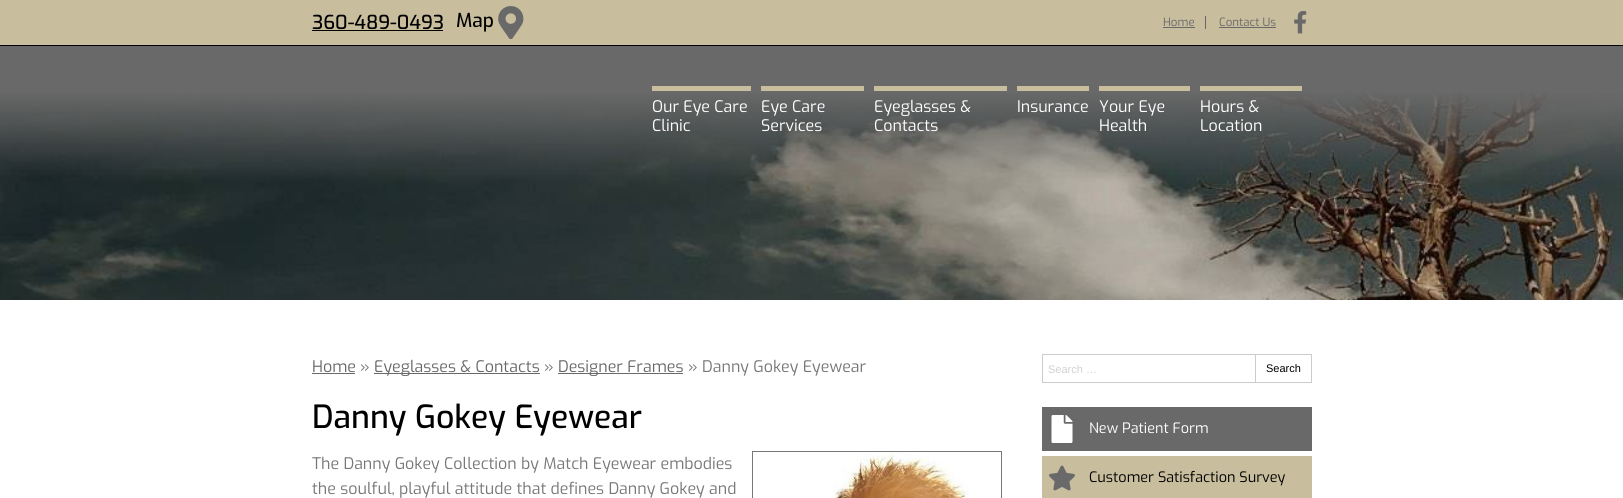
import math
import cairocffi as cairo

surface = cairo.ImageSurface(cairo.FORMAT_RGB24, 1623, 498)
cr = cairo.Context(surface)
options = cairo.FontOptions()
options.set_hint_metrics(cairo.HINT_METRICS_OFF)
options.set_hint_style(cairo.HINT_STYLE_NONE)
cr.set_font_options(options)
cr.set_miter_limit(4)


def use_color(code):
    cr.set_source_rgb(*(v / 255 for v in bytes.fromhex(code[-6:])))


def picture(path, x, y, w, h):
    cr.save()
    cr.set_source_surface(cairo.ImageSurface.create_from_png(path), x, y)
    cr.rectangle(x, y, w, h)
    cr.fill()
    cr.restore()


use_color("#ffffff")
cr.paint()
use_color("#c8bd9d")
cr.rectangle(0, 0, 1623, 45)
cr.fill()
use_color("#000000")
cr.rectangle(0, 45, 1623, 1)
cr.fill()
cr.select_font_face("Exo Medium")
cr.set_font_size(19.25)
cr.move_to(312, 29)
cr.show_text("360-489-0493")
cr.rectangle(312, 30, 131, 1)
cr.fill()
cr.move_to(456, 27)
cr.show_text("Map")
picture("img1.png", 498, 6, 26, 33)
use_color("#666666")
cr.rectangle(1205, 16, 1, 13)
cr.fill()
cr.select_font_face("Exo")
cr.set_font_size(11.5)
use_color("#696969")
cr.move_to(1163, 26)
cr.show_text("Home")
cr.rectangle(1163, 27, 32, 1)
cr.fill()
cr.move_to(1219, 26)
cr.show_text("Contact Us")
cr.rectangle(1219, 27, 57, 1)
cr.fill()
picture("img2.png", 1294, 11, 13, 23)
picture("img3.png", 0, 46, 1623, 254)
use_color("#c8bd9d")
cr.rectangle(652, 86, 99, 5)
cr.fill()
cr.set_font_size(16)
use_color("#ffffff")
cr.move_to(652, 112)
cr.show_text("Our Eye Care")
cr.move_to(652, 131)
cr.show_text("Clinic")
use_color("#c8bd9d")
cr.rectangle(761, 86, 103, 5)
cr.fill()
use_color("#ffffff")
cr.move_to(761, 112)
cr.show_text("Eye Care")
cr.move_to(761, 131)
cr.show_text("Services")
use_color("#c8bd9d")
cr.rectangle(874, 86, 133, 5)
cr.fill()
use_color("#ffffff")
cr.move_to(874, 112)
cr.show_text("Eyeglasses &")
cr.move_to(874, 131)
cr.show_text("Contacts")
use_color("#c8bd9d")
cr.rectangle(1017, 86, 72, 5)
cr.fill()
use_color("#ffffff")
cr.move_to(1017, 112)
cr.show_text("Insurance")
use_color("#c8bd9d")
cr.rectangle(1099, 86, 91, 5)
cr.fill()
use_color("#ffffff")
cr.move_to(1099, 112)
cr.show_text("Your Eye")
cr.move_to(1099, 131)
cr.show_text("Health")
use_color("#c8bd9d")
cr.rectangle(1200, 86, 102, 5)
cr.fill()
use_color("#ffffff")
cr.move_to(1200, 112)
cr.show_text("Hours &")
cr.move_to(1200, 131)
cr.show_text("Location")
use_color("#696969")
cr.move_to(312, 372)
cr.show_text("Home")
cr.rectangle(312, 373, 43, 1)
cr.fill()
use_color("#777777")
cr.move_to(360, 372)
cr.show_text("»")
use_color("#696969")
cr.rectangle(374, 373, 166, 1)
cr.fill()
cr.move_to(374, 372)
cr.show_text("Eyeglasses & Contacts")
use_color("#777777")
cr.move_to(544, 372)
cr.show_text("»")
use_color("#696969")
cr.rectangle(558, 373, 125, 1)
cr.fill()
cr.move_to(558, 372)
cr.show_text("Designer Frames")
use_color("#777777")
cr.move_to(688, 372)
cr.show_text("» Danny Gokey Eyewear")
cr.select_font_face("Exo Medium")
cr.set_font_size(32)
use_color("#000000")
cr.move_to(312, 428)
cr.show_text("Danny Gokey Eyewear")
cr.select_font_face("Exo")
cr.set_font_size(16)
use_color("#777777")
cr.move_to(312, 469)
cr.show_text("The Danny Gokey Collection by Match Eyewear embodies")
cr.rectangle(752.5, 451.5, 249, 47)
cr.set_line_width(1)
cr.stroke()
picture("img4.png", 832, 452, 137, 46)
cr.move_to(312, 494)
cr.show_text("the soulful, playful attitude that defines Danny Gokey and")
cr.rectangle(1042.5, 354.5, 213, 28)
use_color("#cccccc")
cr.stroke()
cr.select_font_face("Liberation Sans")
cr.set_font_size(11)
use_color("#d1d1d1")
cr.move_to(1048, 373)
cr.show_text("Search …")
cr.rectangle(1255.5, 354.5, 56, 28)
use_color("#cccccc")
cr.stroke()
use_color("#000000")
cr.move_to(1266, 372)
cr.show_text("Search")
use_color("#696969")
cr.rectangle(1042, 407, 270, 44)
cr.fill()
picture("img5.png", 1051, 415, 22, 28)
cr.select_font_face("Exo")
cr.set_font_size(14.4)
use_color("#ffffff")
cr.move_to(1089, 433)
cr.show_text("New Patient Form")
use_color("#c8bd9d")
cr.rectangle(1042, 456, 270, 42)
cr.fill()
picture("img6.png", 1049, 465, 26, 26)
use_color("#000000")
cr.move_to(1089, 482)
cr.show_text("Customer Satisfaction Survey")
surface.write_to_png("result.png")
